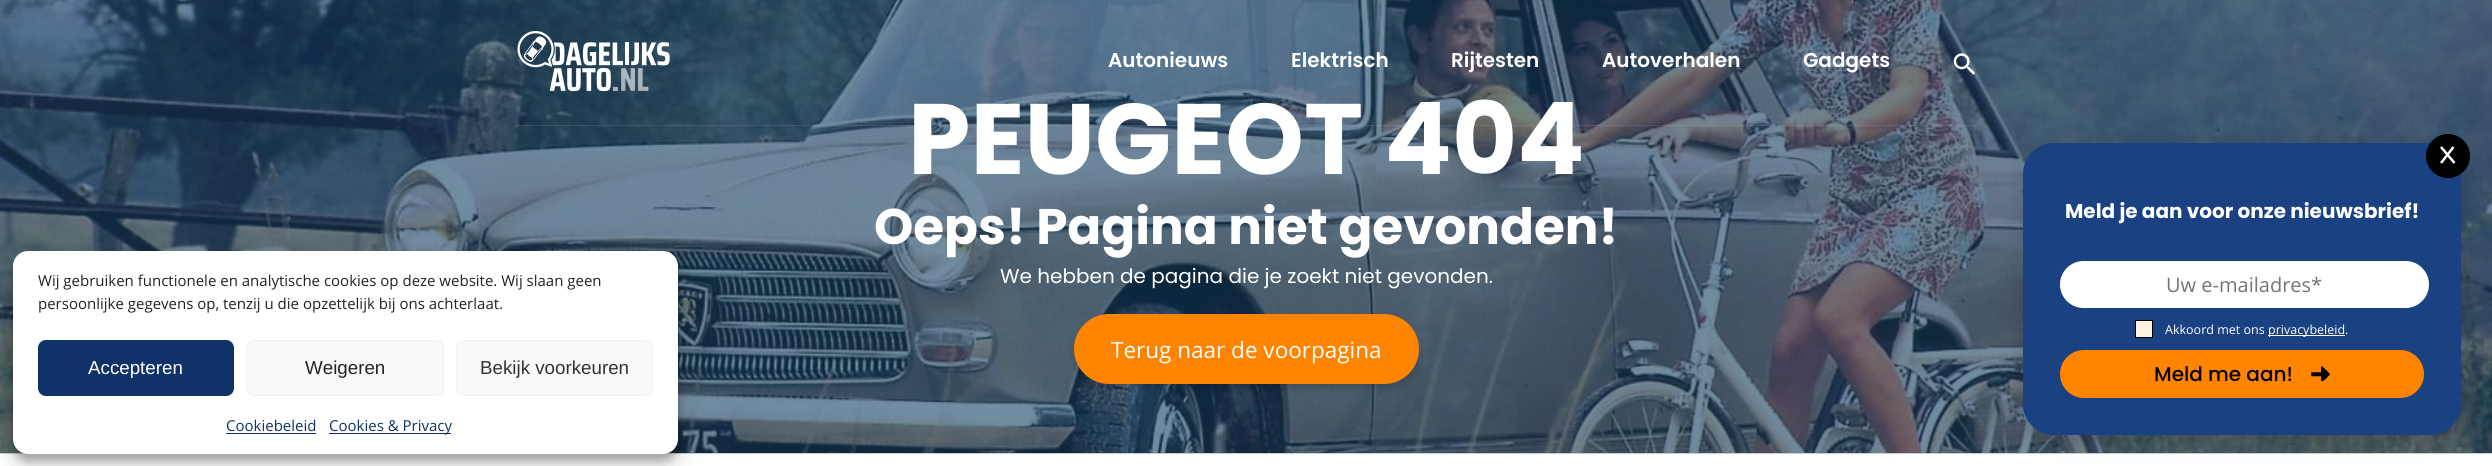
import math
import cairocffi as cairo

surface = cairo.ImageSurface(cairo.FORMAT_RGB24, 2492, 466)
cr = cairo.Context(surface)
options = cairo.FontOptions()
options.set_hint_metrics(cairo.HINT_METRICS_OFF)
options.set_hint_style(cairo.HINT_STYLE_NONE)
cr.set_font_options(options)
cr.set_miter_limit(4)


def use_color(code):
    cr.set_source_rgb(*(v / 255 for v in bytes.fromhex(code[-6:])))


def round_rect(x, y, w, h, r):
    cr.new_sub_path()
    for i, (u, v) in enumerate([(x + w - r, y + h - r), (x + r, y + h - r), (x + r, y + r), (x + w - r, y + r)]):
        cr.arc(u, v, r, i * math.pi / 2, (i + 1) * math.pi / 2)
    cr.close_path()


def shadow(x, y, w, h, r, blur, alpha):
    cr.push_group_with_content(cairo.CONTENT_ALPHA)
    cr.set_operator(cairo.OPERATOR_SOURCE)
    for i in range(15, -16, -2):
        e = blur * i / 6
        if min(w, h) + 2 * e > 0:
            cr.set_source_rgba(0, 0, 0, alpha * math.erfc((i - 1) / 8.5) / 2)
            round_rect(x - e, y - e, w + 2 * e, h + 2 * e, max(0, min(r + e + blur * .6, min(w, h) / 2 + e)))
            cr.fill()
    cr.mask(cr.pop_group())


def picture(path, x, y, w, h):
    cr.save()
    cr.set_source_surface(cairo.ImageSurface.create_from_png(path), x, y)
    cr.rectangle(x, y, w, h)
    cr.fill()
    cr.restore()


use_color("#ffffff")
cr.paint()
picture("img3.png", 0, 0, 2492, 453)
cr.set_source_rgba(1, 1, 1, 0.1)
cr.rectangle(515, 125, 1463, 1)
cr.fill()
picture("img1.png", 517, 31, 153, 61)
cr.select_font_face("Poppins SemiBold")
cr.set_font_size(20)
use_color("#ffffff")
cr.move_to(1108, 67)
cr.show_text("Autonieuws")
cr.move_to(1291, 67)
cr.show_text("Elektrisch")
cr.move_to(1451, 67)
cr.show_text("Rijtesten")
cr.move_to(1602, 67)
cr.show_text("Autoverhalen")
cr.move_to(1803, 67)
cr.show_text("Gadgets")
picture("img2.png", 1953, 53, 22, 22)
use_color("#000000")
shadow(2023, 150, 438, 293, 31, 11, 0.15)
use_color("#cccccc")
cr.rectangle(0, 453, 2492, 1)
cr.fill()
use_color("#000000")
shadow(13, 259, 665, 202, 15, 4, 0.23)
shadow(13, 264, 665, 202, 15, 12.5, 0.19)
use_color("#ffffff")
round_rect(13, 251, 665, 203, 15)
cr.fill()
cr.select_font_face("Open Sans")
cr.set_font_size(15)
use_color("#222222")
cr.move_to(38, 286)
cr.show_text("Wij gebruiken functionele en analytische cookies op deze website. Wij slaan geen")
cr.move_to(38, 309)
cr.show_text("persoonlijke gegevens op, tenzij u die opzettelijk bij ons achterlaat.")
use_color("#103268")
round_rect(38.5, 340.5, 195, 55, 7.5)
cr.fill_preserve()
cr.set_line_width(1)
cr.stroke()
cr.select_font_face("Liberation Sans")
cr.set_font_size(18.75)
use_color("#ffffff")
cr.move_to(88, 374)
cr.show_text("Accepteren")
use_color("#f9f9f9")
round_rect(246.5, 340.5, 197, 55, 7.5)
cr.fill_preserve()
use_color("#f2f2f2")
cr.stroke()
use_color("#222222")
cr.move_to(305, 374)
cr.show_text("Weigeren")
use_color("#f9f9f9")
round_rect(456.5, 340.5, 196, 55, 7.5)
cr.fill_preserve()
use_color("#f2f2f2")
cr.stroke()
use_color("#333333")
cr.move_to(480, 374)
cr.show_text("Bekijk voorkeuren")
cr.select_font_face("Open Sans")
cr.set_font_size(15)
use_color("#103268")
cr.move_to(226, 431)
cr.show_text("Cookiebeleid")
cr.rectangle(226, 433, 90, 1)
cr.fill()
cr.rectangle(329, 433, 122, 1)
cr.fill()
cr.move_to(329, 431)
cr.show_text("Cookies & Privacy")
cr.select_font_face("Poppins", cairo.FONT_SLANT_NORMAL, cairo.FONT_WEIGHT_BOLD)
cr.set_font_size(100)
use_color("#ffffff")
cr.move_to(908, 174)
cr.show_text("PEUGEOT 404")
cr.set_font_size(50)
cr.move_to(874, 244)
cr.show_text("Oeps! Pagina niet gevonden!")
cr.select_font_face("Poppins")
cr.set_font_size(20)
cr.move_to(1000, 283)
cr.show_text("We hebben de pagina die je zoekt niet gevonden.")
use_color("#000000")
shadow(1074, 318, 345, 70, 35, 4, 0.16)
use_color("#ff8400")
round_rect(1075.5, 315.5, 342, 67, 33.5)
cr.fill_preserve()
cr.set_line_width(3)
cr.stroke()
cr.select_font_face("Open Sans")
cr.set_font_size(22.5)
use_color("#ffffff")
cr.move_to(1111, 358)
cr.show_text("Terug naar de voorpagina")
use_color("#1a4182")
round_rect(2023, 143, 438, 292, 31)
cr.fill()
use_color("#000000")
cr.arc(2448, 156, 22, 0, 2 * math.pi)
cr.fill()
cr.new_path()
cr.move_to(2441, 163)
cr.line_to(2453.5, 147)
cr.move_to(2441, 147)
cr.line_to(2454.5, 163)
use_color("#ffffff")
cr.set_line_width(2.5)
cr.stroke()
cr.select_font_face("Poppins", cairo.FONT_SLANT_NORMAL, cairo.FONT_WEIGHT_BOLD)
cr.set_font_size(20)
cr.move_to(2065, 218)
cr.show_text("Meld je aan voor onze nieuwsbrief!")
round_rect(2060, 261, 369, 47, 23.5)
cr.fill()
cr.select_font_face("Open Sans")
use_color("#757575")
cr.move_to(2166, 292)
cr.show_text("Uw e-mailadres*")
use_color("#fef2e0")
cr.rectangle(2135.5, 320.5, 17, 17)
cr.fill_preserve()
use_color("#000000")
cr.set_line_width(1)
cr.stroke()
cr.set_font_size(12.5)
use_color("#ffffff")
cr.move_to(2165, 334)
cr.show_text("Akkoord met ons")
cr.rectangle(2268, 335, 77, 1)
cr.fill()
cr.move_to(2268, 334)
cr.show_text("privacybeleid.")
use_color("#ff8400")
round_rect(2061.5, 351.5, 361, 45, 22.5)
cr.fill_preserve()
cr.set_line_width(3)
cr.stroke()
cr.select_font_face("Poppins Medium")
cr.set_font_size(20)
use_color("#000000")
cr.move_to(2154, 381)
cr.show_text("Meld me aan!")
picture("img4.png", 2311, 366, 19, 15)
use_color("#ffffff")
cr.rectangle(2037, 454, 410, 5)
cr.fill()
surface.write_to_png("result.png")
